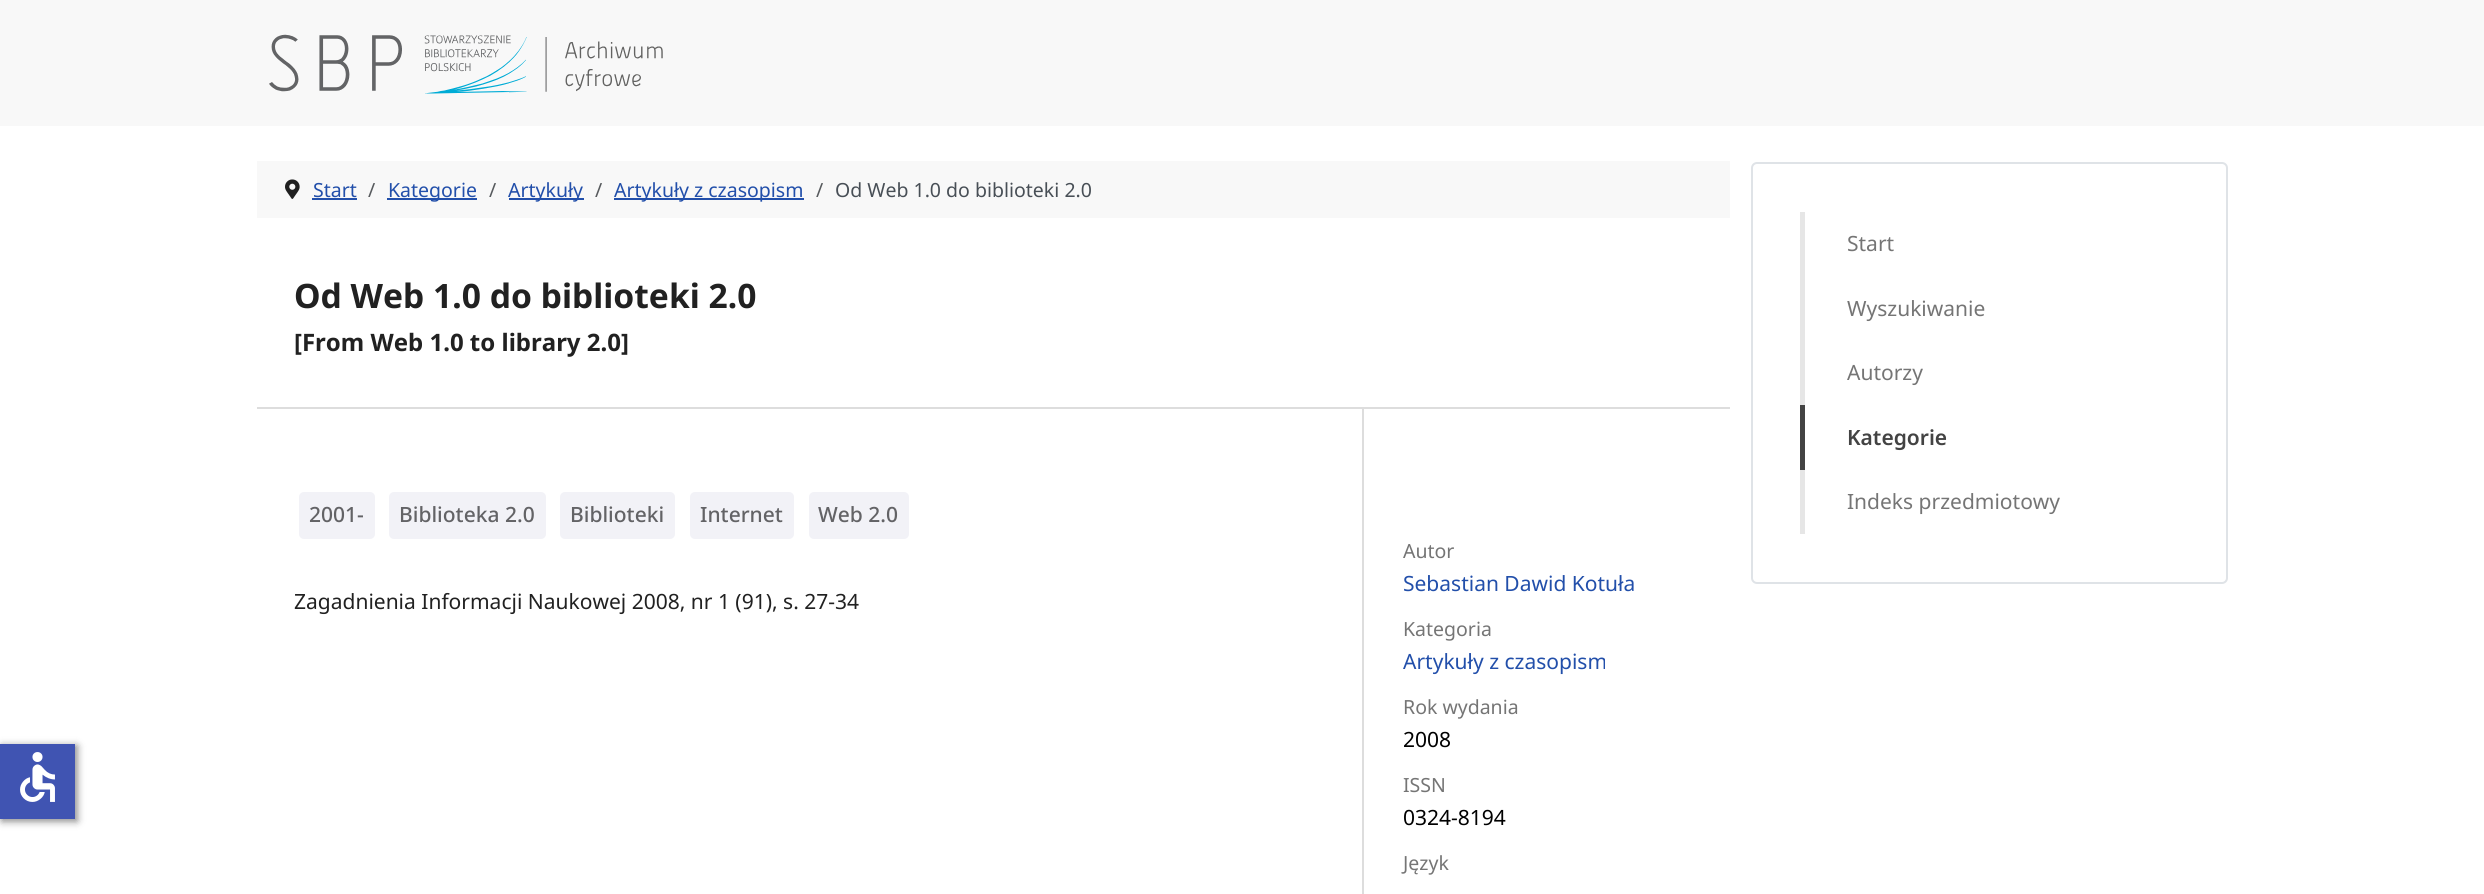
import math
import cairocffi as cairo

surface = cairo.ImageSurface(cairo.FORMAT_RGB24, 2484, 894)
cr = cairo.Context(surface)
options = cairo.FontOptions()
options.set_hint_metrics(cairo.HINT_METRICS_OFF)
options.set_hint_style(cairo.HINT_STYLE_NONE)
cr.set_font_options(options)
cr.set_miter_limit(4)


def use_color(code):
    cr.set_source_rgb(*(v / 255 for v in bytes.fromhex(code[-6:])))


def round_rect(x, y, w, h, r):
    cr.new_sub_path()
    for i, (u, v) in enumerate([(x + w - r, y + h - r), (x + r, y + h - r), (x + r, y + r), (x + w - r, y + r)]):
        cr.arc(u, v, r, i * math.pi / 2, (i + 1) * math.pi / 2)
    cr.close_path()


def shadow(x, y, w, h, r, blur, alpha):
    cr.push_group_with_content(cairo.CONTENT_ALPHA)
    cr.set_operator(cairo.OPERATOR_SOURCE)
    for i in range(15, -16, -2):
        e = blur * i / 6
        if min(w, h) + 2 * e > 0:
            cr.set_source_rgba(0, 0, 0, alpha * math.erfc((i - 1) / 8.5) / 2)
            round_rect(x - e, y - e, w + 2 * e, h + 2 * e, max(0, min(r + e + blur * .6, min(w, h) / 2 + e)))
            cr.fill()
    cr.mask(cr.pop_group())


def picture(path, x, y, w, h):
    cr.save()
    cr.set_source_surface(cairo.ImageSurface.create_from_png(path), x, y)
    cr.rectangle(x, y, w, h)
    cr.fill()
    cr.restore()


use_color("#ffffff")
cr.paint()
use_color("#f8f8f8")
cr.rectangle(0, 0, 2484, 126)
cr.fill()
picture("img1.png", 269, 34, 394, 60)
use_color("#000000")
shadow(2, 746, 75, 75, 0, 4, 0.5)
use_color("#4054b2")
cr.rectangle(0, 744, 75, 75)
cr.fill()
picture("img2.png", 20, 752, 35, 50)
use_color("#f8f8f8")
cr.rectangle(257, 161, 1473, 57)
cr.fill()
picture("img3.png", 285, 179, 15, 20)
cr.select_font_face("Noto Sans")
cr.set_font_size(19.5)
use_color("#224faa")
cr.move_to(313, 197)
cr.show_text("Start")
cr.rectangle(312, 198, 45, 2)
cr.fill()
use_color("#585b5e")
cr.move_to(368, 197)
cr.show_text("/")
use_color("#224faa")
cr.rectangle(387, 198, 90, 2)
cr.fill()
cr.move_to(388, 197)
cr.show_text("Kategorie")
use_color("#585b5e")
cr.move_to(489, 197)
cr.show_text("/")
use_color("#224faa")
cr.rectangle(509, 198, 75, 2)
cr.fill()
cr.move_to(508, 197)
cr.show_text("Artykuły")
use_color("#585b5e")
cr.move_to(595, 197)
cr.show_text("/")
use_color("#224faa")
cr.rectangle(614, 198, 190, 2)
cr.fill()
cr.move_to(614, 197)
cr.show_text("Artykuły z czasopism")
use_color("#585b5e")
cr.move_to(816, 197)
cr.show_text("/")
use_color("#484f56")
cr.move_to(835, 197)
cr.show_text("Od Web 1.0 do biblioteki 2.0")
use_color("#dddddd")
cr.rectangle(257, 407, 1473, 2)
cr.fill()
cr.select_font_face("Noto Sans", cairo.FONT_SLANT_NORMAL, cairo.FONT_WEIGHT_BOLD)
cr.set_font_size(33.6)
use_color("#212121")
cr.move_to(294, 308)
cr.show_text("Od Web 1.0 do biblioteki 2.0")
cr.set_font_size(24)
cr.move_to(294, 351)
cr.show_text("[From Web 1.0 to library 2.0]")
use_color("#f2f2f7")
round_rect(299, 492, 76, 47, 5)
cr.fill()
cr.select_font_face("Noto Sans Medium")
cr.set_font_size(21)
use_color("#636366")
cr.move_to(309, 522)
cr.show_text("2001-")
use_color("#f2f2f7")
round_rect(389, 492, 157, 47, 5)
cr.fill()
use_color("#636366")
cr.move_to(399, 522)
cr.show_text("Biblioteka 2.0")
use_color("#f2f2f7")
round_rect(560, 492, 115, 47, 5)
cr.fill()
use_color("#636366")
cr.move_to(570, 522)
cr.show_text("Biblioteki")
use_color("#f2f2f7")
round_rect(690, 492, 104, 47, 5)
cr.fill()
use_color("#636366")
cr.move_to(700, 522)
cr.show_text("Internet")
use_color("#f2f2f7")
round_rect(809, 492, 100, 47, 5)
cr.fill()
use_color("#636366")
cr.move_to(818, 522)
cr.show_text("Web 2.0")
cr.select_font_face("Noto Sans")
use_color("#212121")
cr.move_to(294, 609)
cr.show_text("Zagadnienia Informacji Naukowej 2008, nr 1 (91), s. 27-34")
use_color("#dddddd")
cr.rectangle(1362, 408, 2, 486)
cr.fill()
cr.set_font_size(19.5)
use_color("#757575")
cr.move_to(1403, 558)
cr.show_text("Autor")
cr.set_font_size(21)
use_color("#224faa")
cr.move_to(1403, 591)
cr.show_text("Sebastian Dawid Kotuła")
cr.set_font_size(19.5)
use_color("#757575")
cr.move_to(1403, 636)
cr.show_text("Kategoria")
cr.set_font_size(21)
use_color("#224faa")
cr.move_to(1403, 669)
cr.show_text("Artykuły z czasopism")
cr.set_font_size(19.5)
use_color("#757575")
cr.move_to(1403, 714)
cr.show_text("Rok wydania")
cr.set_font_size(21)
use_color("#000000")
cr.move_to(1403, 747)
cr.show_text("2008")
cr.set_font_size(19.5)
use_color("#757575")
cr.move_to(1403, 792)
cr.show_text("ISSN")
cr.set_font_size(21)
use_color("#000000")
cr.move_to(1403, 825)
cr.show_text("0324-8194")
cr.set_font_size(19.5)
use_color("#757575")
cr.move_to(1403, 870)
cr.show_text("Język")
round_rect(1752, 163, 475, 420, 5)
use_color("#dfe3e7")
cr.stroke()
use_color("#e6e6e6")
cr.rectangle(1800, 212, 5, 193)
cr.fill()
cr.set_font_size(21)
use_color("#757575")
cr.move_to(1847, 251)
cr.show_text("Start")
cr.move_to(1847, 316)
cr.show_text("Wyszukiwanie")
cr.move_to(1847, 380)
cr.show_text("Autorzy")
use_color("#434343")
cr.rectangle(1800, 405, 5, 65)
cr.fill()
cr.select_font_face("Noto Sans SemiBold")
cr.move_to(1847, 445)
cr.show_text("Kategorie")
use_color("#e6e6e6")
cr.rectangle(1800, 470, 5, 64)
cr.fill()
cr.select_font_face("Noto Sans")
use_color("#757575")
cr.move_to(1847, 509)
cr.show_text("Indeks przedmiotowy")
surface.write_to_png("result.png")
